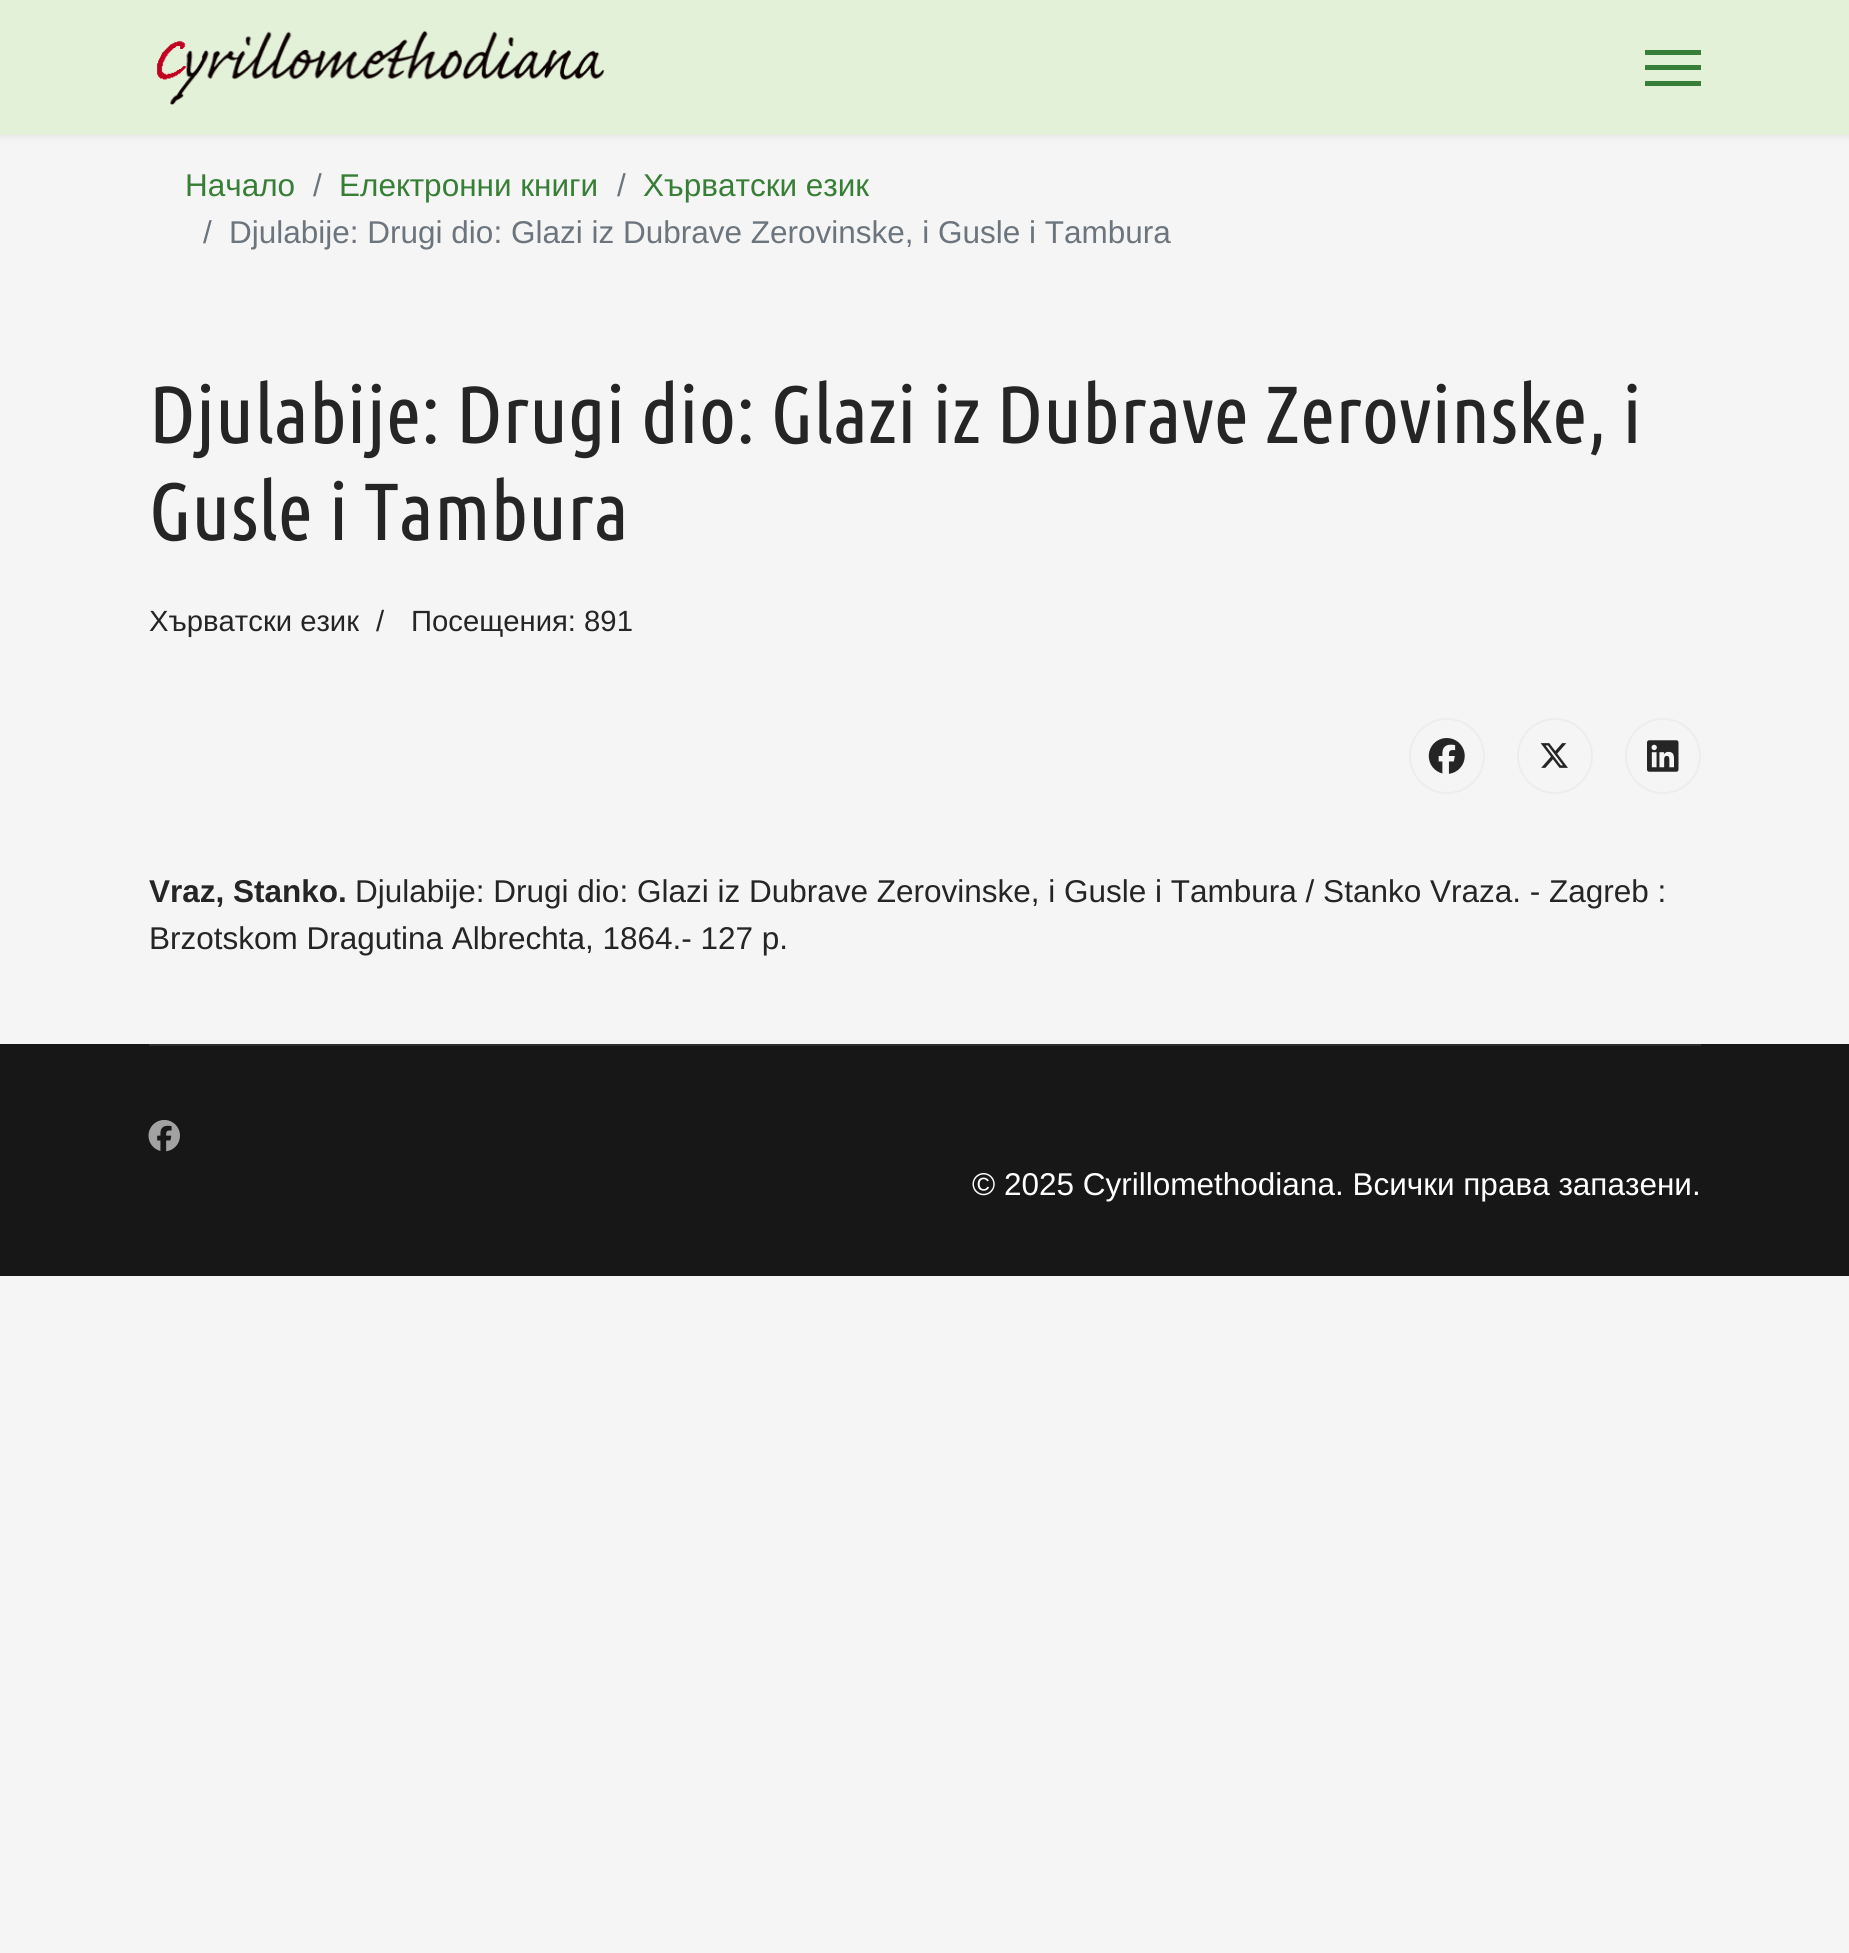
import math
import cairocffi as cairo

surface = cairo.ImageSurface(cairo.FORMAT_RGB24, 1849, 1953)
cr = cairo.Context(surface)
options = cairo.FontOptions()
options.set_hint_metrics(cairo.HINT_METRICS_OFF)
options.set_hint_style(cairo.HINT_STYLE_NONE)
cr.set_font_options(options)
cr.set_miter_limit(4)


def use_color(code):
    cr.set_source_rgb(*(v / 255 for v in bytes.fromhex(code[-6:])))


def round_rect(x, y, w, h, r):
    cr.new_sub_path()
    for i, (u, v) in enumerate([(x + w - r, y + h - r), (x + r, y + h - r), (x + r, y + r), (x + w - r, y + r)]):
        cr.arc(u, v, r, i * math.pi / 2, (i + 1) * math.pi / 2)
    cr.close_path()


def shadow(x, y, w, h, r, blur, alpha):
    cr.push_group_with_content(cairo.CONTENT_ALPHA)
    cr.set_operator(cairo.OPERATOR_SOURCE)
    for i in range(15, -16, -2):
        e = blur * i / 6
        if min(w, h) + 2 * e > 0:
            cr.set_source_rgba(0, 0, 0, alpha * math.erfc((i - 1) / 8.5) / 2)
            round_rect(x - e, y - e, w + 2 * e, h + 2 * e, max(0, min(r + e + blur * .6, min(w, h) / 2 + e)))
            cr.fill()
    cr.mask(cr.pop_group())


def picture(path, x, y, w, h):
    cr.save()
    cr.set_source_surface(cairo.ImageSurface.create_from_png(path), x, y)
    cr.rectangle(x, y, w, h)
    cr.fill()
    cr.restore()


use_color("#f5f5f5")
cr.paint()
use_color("#000000")
shadow(0, 0, 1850, 135, 0, 4.5, 0.1)
use_color("#e4f1d9")
cr.rectangle(0, 0, 1849, 135)
cr.fill()
picture("img1.png", 157, 30, 448, 75)
use_color("#377e36")
cr.rectangle(1645, 50, 56, 5)
cr.fill()
cr.rectangle(1645, 65, 56, 5)
cr.fill()
cr.rectangle(1645, 81, 56, 5)
cr.fill()
cr.select_font_face("Liberation Sans")
cr.set_font_size(31.5)
cr.move_to(185, 196)
cr.show_text("Начало")
use_color("#6c757d")
cr.move_to(313, 196)
cr.show_text("/")
use_color("#377e36")
cr.move_to(339, 196)
cr.show_text("Електронни книги")
use_color("#6c757d")
cr.move_to(617, 196)
cr.show_text("/")
use_color("#377e36")
cr.move_to(643, 196)
cr.show_text("Хърватски език")
use_color("#6c757d")
cr.move_to(203, 243)
cr.show_text("/")
cr.move_to(229, 243)
cr.show_text("Djulabije: Drugi dio: Glazi iz Dubrave Zerovinske, i Gusle i Tambura")
cr.select_font_face("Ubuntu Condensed")
cr.set_font_size(81)
use_color("#252525")
cr.move_to(149, 443)
cr.show_text("Djulabije: Drugi dio: Glazi iz Dubrave Zerovinske, i")
cr.move_to(149, 540)
cr.show_text("Gusle i Tambura")
cr.select_font_face("Liberation Sans")
cr.set_font_size(29.25)
cr.move_to(149, 631)
cr.show_text("Хърватски език")
cr.move_to(376, 631)
cr.show_text("/")
cr.move_to(411, 631)
cr.show_text("Посещения: 891")
cr.new_path()
cr.arc(1447, 756, 37, 0, 2 * math.pi)
use_color("#ededed")
cr.stroke()
picture("img2.png", 1428, 738, 37, 36)
cr.arc(1555, 756, 37, 0, 2 * math.pi)
cr.stroke()
picture("img3.png", 1540, 743, 28, 25)
cr.arc(1663, 756, 37, 0, 2 * math.pi)
cr.stroke()
picture("img4.png", 1647, 740, 32, 32)
cr.select_font_face("Liberation Sans", cairo.FONT_SLANT_NORMAL, cairo.FONT_WEIGHT_BOLD)
cr.set_font_size(31.5)
use_color("#252525")
cr.move_to(149, 902)
cr.show_text("Vraz, Stanko.")
cr.select_font_face("Liberation Sans")
cr.move_to(355, 902)
cr.show_text("Djulabije: Drugi dio: Glazi iz Dubrave Zerovinske, i Gusle i Tambura / Stanko Vraza. - Zagreb :")
cr.move_to(149, 949)
cr.show_text("Brzotskom Dragutina Albrechta, 1864.- 127 p.")
use_color("#171717")
cr.rectangle(0, 1044, 1849, 232)
cr.fill()
use_color("#2e2e2e")
cr.rectangle(149, 1044, 1552, 2)
cr.fill()
picture("img5.png", 148, 1119, 32, 33)
use_color("#ffffff")
cr.move_to(972, 1195)
cr.show_text("© 2025 Cyrillomethodiana. Всички права запазени.")
surface.write_to_png("result.png")
